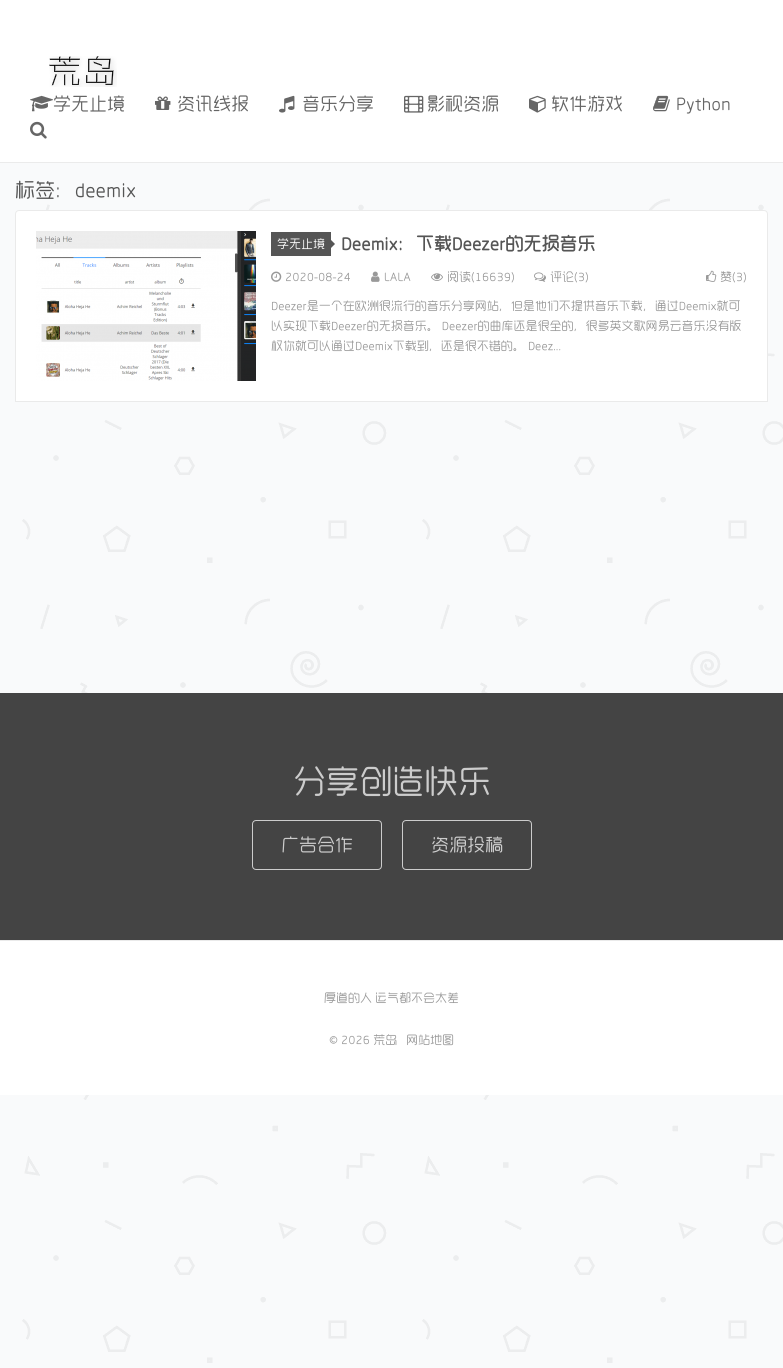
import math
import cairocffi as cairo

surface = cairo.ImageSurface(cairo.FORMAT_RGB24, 783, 1368)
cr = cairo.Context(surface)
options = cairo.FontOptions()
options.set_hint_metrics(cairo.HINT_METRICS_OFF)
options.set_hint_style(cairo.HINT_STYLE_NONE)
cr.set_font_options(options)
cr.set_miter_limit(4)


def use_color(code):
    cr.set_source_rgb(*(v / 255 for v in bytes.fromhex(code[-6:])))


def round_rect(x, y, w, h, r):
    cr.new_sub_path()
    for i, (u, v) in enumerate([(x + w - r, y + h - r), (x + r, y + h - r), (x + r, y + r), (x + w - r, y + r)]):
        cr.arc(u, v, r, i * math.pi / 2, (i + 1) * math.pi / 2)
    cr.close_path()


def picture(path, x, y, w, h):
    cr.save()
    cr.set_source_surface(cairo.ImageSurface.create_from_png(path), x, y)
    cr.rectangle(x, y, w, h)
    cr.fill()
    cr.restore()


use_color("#ffffff")
cr.paint()
picture("img1.png", 0, 163, 783, 1205)
use_color("#ebebeb")
cr.rectangle(0, 162, 783, 1)
cr.fill()
picture("img2.png", 49, 56, 68, 31)
picture("img3.png", 30, 95, 24, 17)
cr.select_font_face("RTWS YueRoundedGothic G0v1")
cr.set_font_size(18)
use_color("#666666")
cr.move_to(53, 110)
cr.show_text("学无止境")
picture("img4.png", 155, 96, 16, 14)
cr.move_to(177, 110)
cr.show_text("资讯线报")
picture("img5.png", 279, 95, 16, 18)
cr.move_to(302, 110)
cr.show_text("音乐分享")
picture("img6.png", 404, 95, 20, 18)
cr.move_to(427, 110)
cr.show_text("影视资源")
picture("img7.png", 529, 95, 17, 18)
cr.move_to(551, 110)
cr.show_text("软件游戏")
picture("img8.png", 653, 95, 17, 17)
cr.move_to(676, 110)
cr.show_text("Python")
picture("img9.png", 30, 121, 17, 18)
cr.set_font_size(20)
use_color("#555555")
cr.move_to(15, 197)
cr.show_text("标签：deemix")
use_color("#ffffff")
cr.new_path()
cr.move_to(19, 210.5)
cr.line_to(764, 210.5)
cr.curve_to(766, 210.5, 767.5, 212, 767.5, 214)
cr.line_to(767.5, 401.5)
cr.line_to(15.5, 401.5)
cr.line_to(15.5, 214)
cr.curve_to(15.5, 212, 17, 210.5, 19, 210.5)
cr.close_path()
cr.fill_preserve()
use_color("#eaeaea")
cr.set_line_width(1)
cr.stroke()
picture("img10.png", 36, 231, 220, 150)
use_color("#555555")
cr.rectangle(271, 232, 60, 24)
cr.fill()
cr.set_font_size(12)
use_color("#ffffff")
cr.move_to(277, 248)
cr.show_text("学无止境")
use_color("#555555")
cr.new_path()
cr.move_to(331, 248)
cr.line_to(331, 240)
cr.line_to(335, 244)
cr.close_path()
cr.fill()
cr.select_font_face("RTWS YueRoundedGothic G0v1", cairo.FONT_SLANT_NORMAL, cairo.FONT_WEIGHT_BOLD)
cr.set_font_size(18)
cr.move_to(341, 250)
cr.show_text("Deemix：下载Deezer的无损音乐")
picture("img11.png", 271, 271, 11, 11)
cr.select_font_face("RTWS YueRoundedGothic G0v1")
cr.set_font_size(12)
use_color("#999999")
cr.move_to(285, 281)
cr.show_text("2020-08-24")
picture("img12.png", 371, 271, 9, 11)
cr.move_to(384, 281)
cr.show_text("LALA")
picture("img13.png", 431, 273, 12, 8)
cr.move_to(447, 281)
cr.show_text("阅读(16639)")
picture("img14.png", 534, 272, 12, 10)
cr.move_to(550, 281)
cr.show_text("评论(3)")
picture("img15.png", 706, 270, 11, 12)
cr.move_to(720, 281)
cr.show_text("赞(3)")
cr.move_to(271, 310)
cr.show_text("Deezer是一个在欧洲很流行的音乐分享网站，但是他们不提供音乐下载，通过Deemix就可")
cr.move_to(271, 330)
cr.show_text("以实现下载Deezer的无损音乐。 Deezer的曲库还是很全的，很多英文歌网易云音乐没有版")
cr.move_to(271, 350)
cr.show_text("权你就可以通过Deemix下载到，还是很不错的。 Deez...")
use_color("#444444")
cr.rectangle(0, 693, 783, 247)
cr.fill()
cr.set_font_size(33)
use_color("#cccccc")
cr.move_to(293, 793)
cr.show_text("分享创造快乐")
round_rect(252.5, 820.5, 129, 49, 3.5)
cr.stroke()
cr.set_font_size(18)
cr.move_to(281, 851)
cr.show_text("广告合作")
round_rect(402.5, 820.5, 129, 49, 3.5)
cr.stroke()
cr.move_to(431, 851)
cr.show_text("资源投稿")
use_color("#ffffff")
cr.rectangle(0, 941, 783, 154)
cr.fill()
use_color("#eaeaea")
cr.rectangle(0, 940, 783, 1)
cr.fill()
cr.set_font_size(12)
use_color("#999999")
cr.move_to(324, 1002)
cr.show_text("厚道的人 运气都不会太差")
cr.move_to(329, 1044)
cr.show_text("© 2026 荒岛")
cr.move_to(406, 1044)
cr.show_text("网站地图")
surface.write_to_png("result.png")
